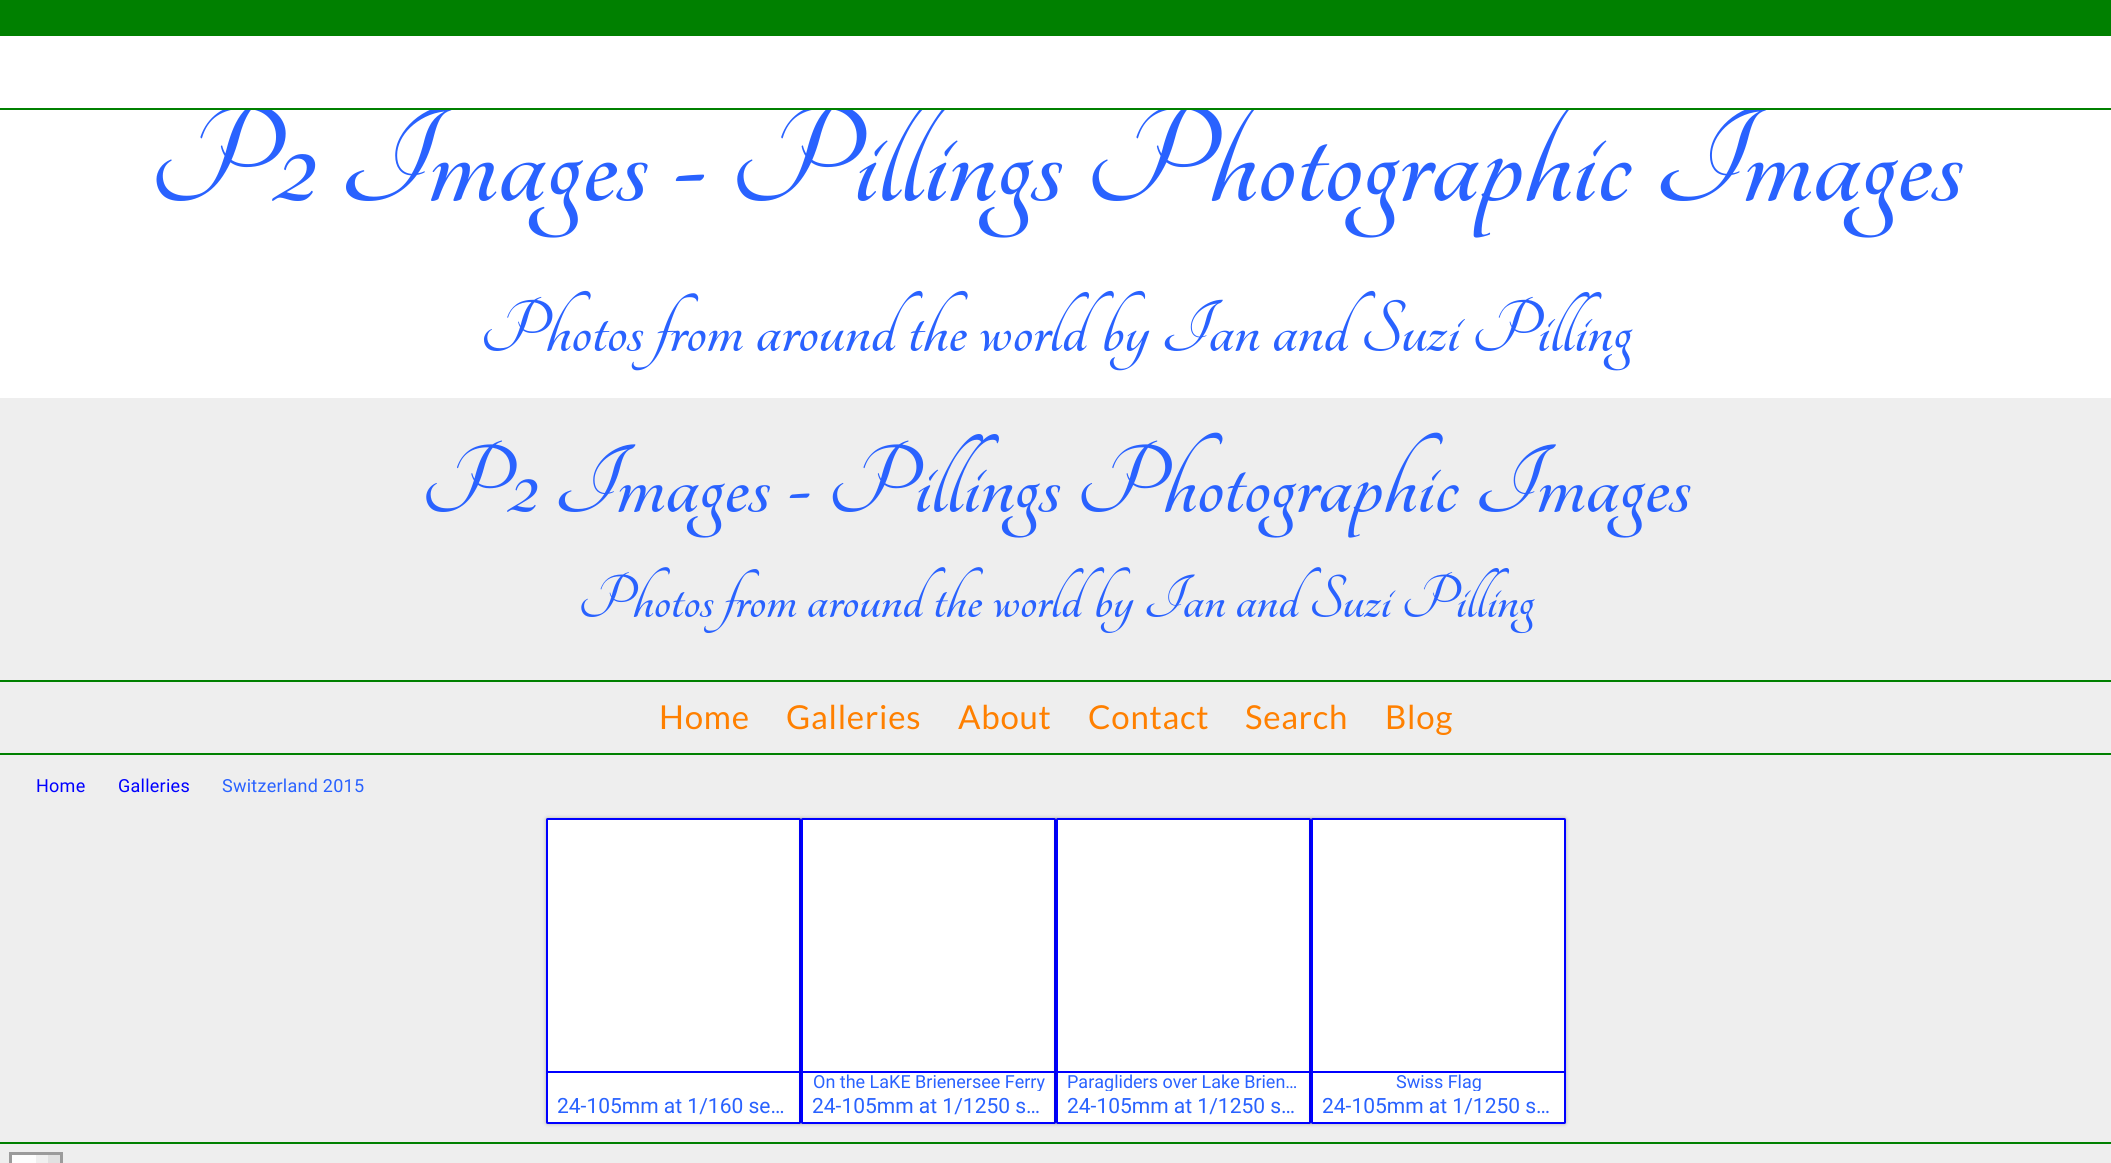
import math
import cairocffi as cairo

surface = cairo.ImageSurface(cairo.FORMAT_RGB24, 2111, 1163)
cr = cairo.Context(surface)
options = cairo.FontOptions()
options.set_hint_metrics(cairo.HINT_METRICS_OFF)
options.set_hint_style(cairo.HINT_STYLE_NONE)
cr.set_font_options(options)
cr.set_miter_limit(4)


def use_color(code):
    cr.set_source_rgb(*(v / 255 for v in bytes.fromhex(code[-6:])))


def spaced_text(x, y, s, letter, word):
    cr.move_to(x, y)
    for ch in s:
        cr.show_text(ch)
        cr.rel_move_to(letter + word * (ch == ' '), 0)


def round_rect(x, y, w, h, r):
    cr.new_sub_path()
    for i, (u, v) in enumerate([(x + w - r, y + h - r), (x + r, y + h - r), (x + r, y + r), (x + w - r, y + r)]):
        cr.arc(u, v, r, i * math.pi / 2, (i + 1) * math.pi / 2)
    cr.close_path()


def shadow(x, y, w, h, r, blur, alpha):
    cr.push_group_with_content(cairo.CONTENT_ALPHA)
    cr.set_operator(cairo.OPERATOR_SOURCE)
    for i in range(15, -16, -2):
        e = blur * i / 6
        if min(w, h) + 2 * e > 0:
            cr.set_source_rgba(0, 0, 0, alpha * math.erfc((i - 1) / 8.5) / 2)
            round_rect(x - e, y - e, w + 2 * e, h + 2 * e, max(0, min(r + e + blur * .6, min(w, h) / 2 + e)))
            cr.fill()
    cr.mask(cr.pop_group())


use_color("#eeeeee")
cr.paint()
use_color("#ffffff")
cr.rectangle(0, 110, 2111, 288)
cr.fill()
cr.select_font_face("Tangerine", cairo.FONT_SLANT_NORMAL, cairo.FONT_WEIGHT_BOLD)
cr.set_font_size(150)
use_color("#2962ff")
cr.move_to(149, 201)
cr.show_text("P2 Images - Pillings Photographic Images")
use_color("#ffffff")
cr.rectangle(0, 36, 2111, 72)
cr.fill()
use_color("#008000")
cr.rectangle(0, 0, 2111, 36)
cr.fill()
cr.rectangle(0, 108, 2111, 2)
cr.fill()
cr.set_font_size(79.5)
use_color("#2962ff")
cr.move_to(480, 351)
cr.show_text("Photos from around the world by Ian and Suzi Pilling")
cr.set_font_size(105)
cr.move_to(421, 512)
cr.show_text("P2 Images - Pillings Photographic Images")
cr.set_font_size(66)
cr.move_to(578, 617)
cr.show_text("Photos from around the world by Ian and Suzi Pilling")
use_color("#008000")
cr.rectangle(0, 680, 2111, 2)
cr.fill()
cr.rectangle(0, 753, 2111, 2)
cr.fill()
cr.select_font_face("Lato")
cr.set_font_size(33)
use_color("#ff8000")
spaced_text(659, 729, "Home", 0.75, 0)
spaced_text(786, 729, "Galleries", 0.75, 0)
spaced_text(958, 729, "About", 0.75, 0)
spaced_text(1088, 729, "Contact", 0.75, 0)
spaced_text(1245, 729, "Search", 0.75, 0)
spaced_text(1385, 729, "Blog", 0.75, 0)
cr.select_font_face("Roboto")
cr.set_font_size(18)
use_color("#0000ff")
spaced_text(36, 792, "Home", 0.25, 0)
spaced_text(118, 792, "Galleries", 0.25, 0)
use_color("#2962ff")
spaced_text(222, 792, "Switzerland 2015", 0.25, 0)
use_color("#000000")
shadow(546, 818, 255, 306, 1.5, 2, 0.25)
use_color("#ffffff")
round_rect(547, 819, 253, 304, 0.5)
cr.fill_preserve()
use_color("#0000ff")
cr.stroke()
cr.rectangle(548, 1071, 252, 2)
cr.fill()
cr.set_font_size(21)
use_color("#2962ff")
cr.move_to(557, 1113)
cr.show_text("24-105mm at 1/160 se…")
use_color("#000000")
shadow(801, 818, 255, 306, 1.5, 2, 0.25)
use_color("#ffffff")
round_rect(802, 819, 253, 304, 0.5)
cr.fill_preserve()
use_color("#0000ff")
cr.stroke()
cr.rectangle(803, 1071, 252, 2)
cr.fill()
cr.save()
cr.rectangle(803, 1073, 252, 18)
cr.clip()
cr.set_font_size(18)
use_color("#2962ff")
cr.move_to(813, 1088)
cr.show_text("On the LaKE Brienersee Ferry")
cr.restore()
use_color("#2962ff")
cr.move_to(812, 1113)
cr.show_text("24-105mm at 1/1250 s…")
use_color("#000000")
shadow(1056, 818, 255, 306, 1.5, 2, 0.25)
use_color("#ffffff")
round_rect(1057, 819, 253, 304, 0.5)
cr.fill_preserve()
use_color("#0000ff")
cr.stroke()
cr.rectangle(1058, 1071, 252, 2)
cr.fill()
cr.save()
cr.rectangle(1058, 1073, 252, 18)
cr.clip()
cr.set_font_size(18)
use_color("#2962ff")
cr.move_to(1067, 1088)
cr.show_text("Paragliders over Lake Brien…")
cr.restore()
use_color("#2962ff")
cr.move_to(1067, 1113)
cr.show_text("24-105mm at 1/1250 s…")
use_color("#000000")
shadow(1311, 818, 255, 306, 1.5, 2, 0.25)
use_color("#ffffff")
round_rect(1312, 819, 253, 304, 0.5)
cr.fill_preserve()
use_color("#0000ff")
cr.stroke()
cr.rectangle(1313, 1071, 252, 2)
cr.fill()
cr.save()
cr.rectangle(1313, 1073, 252, 18)
cr.clip()
cr.set_font_size(18)
use_color("#2962ff")
cr.move_to(1396, 1088)
cr.show_text("Swiss Flag")
cr.restore()
use_color("#2962ff")
cr.move_to(1322, 1113)
cr.show_text("24-105mm at 1/1250 s…")
use_color("#008000")
cr.rectangle(0, 1142, 2111, 2)
cr.fill()
use_color("#9b9b9b")
cr.rectangle(9, 1152, 54, 11)
cr.fill()
use_color("#fdfdfd")
cr.rectangle(12, 1155, 24, 8)
cr.fill()
use_color("#f0f0f0")
cr.rectangle(36, 1155, 12, 8)
cr.fill()
use_color("#e1e1e1")
cr.rectangle(48, 1155, 12, 8)
cr.fill()
surface.write_to_png("result.png")
